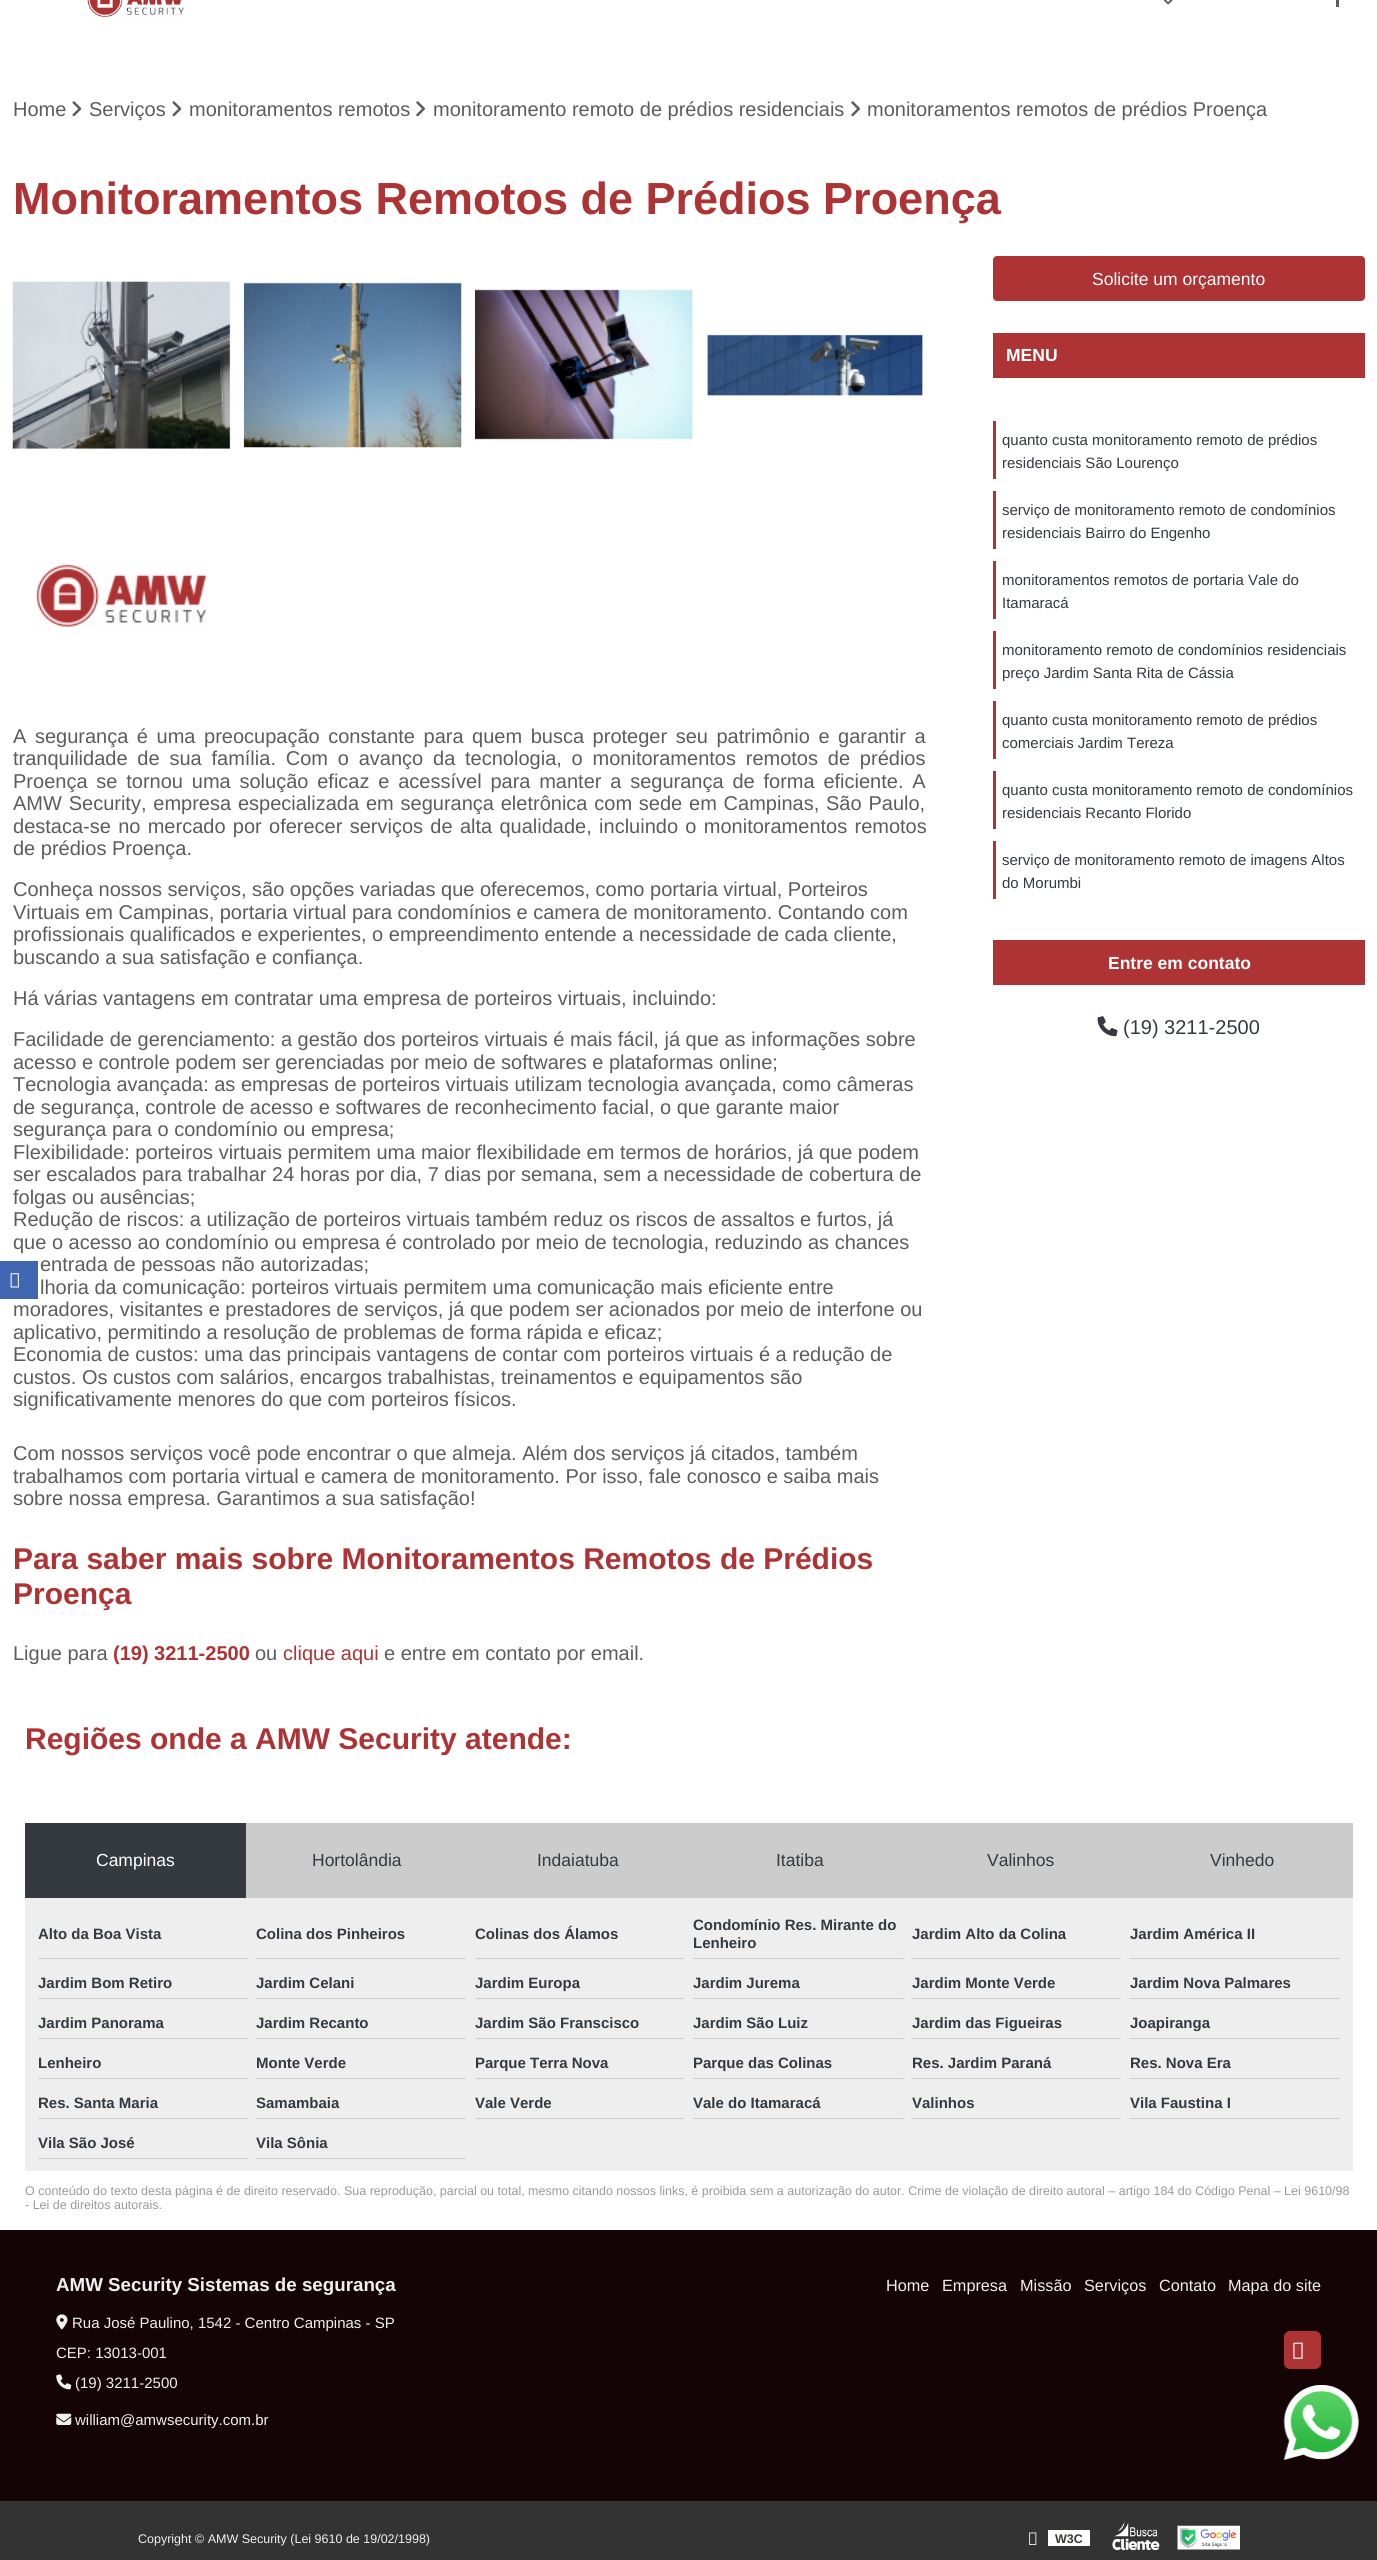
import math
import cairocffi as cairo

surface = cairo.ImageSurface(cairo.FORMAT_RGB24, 1377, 2560)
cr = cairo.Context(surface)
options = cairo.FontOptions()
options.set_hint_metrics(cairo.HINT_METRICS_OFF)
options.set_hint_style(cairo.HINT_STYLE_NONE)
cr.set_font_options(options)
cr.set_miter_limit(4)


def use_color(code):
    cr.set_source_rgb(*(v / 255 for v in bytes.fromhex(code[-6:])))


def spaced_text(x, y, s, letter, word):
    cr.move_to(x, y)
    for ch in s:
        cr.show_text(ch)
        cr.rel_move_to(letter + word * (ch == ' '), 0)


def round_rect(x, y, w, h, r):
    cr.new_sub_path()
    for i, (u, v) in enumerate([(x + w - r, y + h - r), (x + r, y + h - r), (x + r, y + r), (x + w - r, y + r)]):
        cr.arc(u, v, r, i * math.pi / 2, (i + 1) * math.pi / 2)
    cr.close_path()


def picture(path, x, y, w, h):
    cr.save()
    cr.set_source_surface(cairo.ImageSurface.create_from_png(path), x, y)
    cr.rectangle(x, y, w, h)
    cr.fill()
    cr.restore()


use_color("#ffffff")
cr.paint()
picture("img1.png", 87, 0, 97, 17)
picture("img2.png", 1163, 0, 10, 5)
use_color("#5c5c5c")
cr.rectangle(1336, 0, 3, 7)
cr.fill()
cr.select_font_face("Liberation Sans")
cr.set_font_size(20)
cr.move_to(13, 116)
cr.show_text("Home")
picture("img3.png", 72, 101, 10, 16)
cr.move_to(89, 116)
cr.show_text("Serviços")
picture("img3.png", 172, 101, 10, 16)
cr.move_to(189, 116)
cr.show_text("monitoramentos remotos")
picture("img4.png", 416, 101, 9, 16)
cr.move_to(433, 116)
cr.show_text("monitoramento remoto de prédios residenciais")
picture("img4.png", 851, 101, 9, 16)
cr.move_to(867, 116)
cr.show_text("monitoramentos remotos de prédios Proença")
cr.select_font_face("Liberation Sans", cairo.FONT_SLANT_NORMAL, cairo.FONT_WEIGHT_BOLD)
cr.set_font_size(45)
use_color("#ad3335")
cr.move_to(13, 214)
cr.show_text("Monitoramentos Remotos de Prédios Proença")
picture("img5.png", 12, 281, 219, 168)
picture("img6.png", 243, 282, 219, 166)
picture("img7.png", 475, 289, 218, 151)
picture("img8.png", 707, 334, 216, 62)
picture("img9.png", 35, 564, 172, 63)
cr.select_font_face("Liberation Sans")
cr.set_font_size(20)
use_color("#5c5c5c")
spaced_text(13, 743, "A segurança é uma preocupação constante para quem busca proteger seu patrimônio e garantir a", 0, 3)
spaced_text(13, 765, "tranquilidade de sua família. Com o avanço da tecnologia, o monitoramentos remotos de prédios", 0, 4.25)
spaced_text(13, 788, "Proença se tornou uma solução eficaz e acessível para manter a segurança de forma eficiente. A", 0, 3.25)
spaced_text(13, 810, "AMW Security, empresa especializada em segurança eletrônica com sede em Campinas, São Paulo,", 0, 1.25)
spaced_text(13, 833, "destaca-se no mercado por oferecer serviços de alta qualidade, incluindo o monitoramentos remotos", 0, 1.75)
cr.move_to(13, 855)
cr.show_text("de prédios Proença.")
cr.move_to(13, 896)
cr.show_text("Conheça nossos serviços, são opções variadas que oferecemos, como portaria virtual, Porteiros")
cr.move_to(13, 919)
cr.show_text("Virtuais em Campinas, portaria virtual para condomínios e camera de monitoramento. Contando com")
cr.move_to(13, 941)
cr.show_text("profissionais qualificados e experientes, o empreendimento entende a necessidade de cada cliente,")
cr.move_to(13, 964)
cr.show_text("buscando a sua satisfação e confiança.")
cr.move_to(13, 1005)
cr.show_text("Há várias vantagens em contratar uma empresa de porteiros virtuais, incluindo:")
cr.move_to(13, 1046)
cr.show_text("Facilidade de gerenciamento: a gestão dos porteiros virtuais é mais fácil, já que as informações sobre")
cr.move_to(13, 1069)
cr.show_text("acesso e controle podem ser gerenciadas por meio de softwares e plataformas online;")
cr.move_to(13, 1091)
cr.show_text("Tecnologia avançada: as empresas de porteiros virtuais utilizam tecnologia avançada, como câmeras")
cr.move_to(13, 1114)
cr.show_text("de segurança, controle de acesso e softwares de reconhecimento facial, o que garante maior")
cr.move_to(13, 1136)
cr.show_text("segurança para o condomínio ou empresa;")
cr.move_to(13, 1159)
cr.show_text("Flexibilidade: porteiros virtuais permitem uma maior flexibilidade em termos de horários, já que podem")
cr.move_to(13, 1181)
cr.show_text("ser escalados para trabalhar 24 horas por dia, 7 dias por semana, sem a necessidade de cobertura de")
cr.move_to(13, 1204)
cr.show_text("folgas ou ausências;")
cr.move_to(13, 1226)
cr.show_text("Redução de riscos: a utilização de porteiros virtuais também reduz os riscos de assaltos e furtos, já")
cr.move_to(13, 1249)
cr.show_text("que o acesso ao condomínio ou empresa é controlado por meio de tecnologia, reduzindo as chances")
cr.move_to(40, 1271)
cr.show_text("entrada de pessoas não autorizadas;")
cr.move_to(40, 1294)
cr.show_text("lhoria da comunicação: porteiros virtuais permitem uma comunicação mais eficiente entre")
cr.move_to(13, 1316)
cr.show_text("moradores, visitantes e prestadores de serviços, já que podem ser acionados por meio de interfone ou")
cr.move_to(13, 1339)
cr.show_text("aplicativo, permitindo a resolução de problemas de forma rápida e eficaz;")
cr.move_to(13, 1361)
cr.show_text("Economia de custos: uma das principais vantagens de contar com porteiros virtuais é a redução de")
cr.move_to(13, 1384)
cr.show_text("custos. Os custos com salários, encargos trabalhistas, treinamentos e equipamentos são")
cr.move_to(13, 1406)
cr.show_text("significativamente menores do que com porteiros físicos.")
cr.move_to(13, 1460)
cr.show_text("Com nossos serviços você pode encontrar o que almeja. Além dos serviços já citados, também")
cr.move_to(13, 1483)
cr.show_text("trabalhamos com portaria virtual e camera de monitoramento. Por isso, fale conosco e saiba mais")
cr.move_to(13, 1505)
cr.show_text("sobre nossa empresa. Garantimos a sua satisfação!")
cr.select_font_face("Liberation Sans", cairo.FONT_SLANT_NORMAL, cairo.FONT_WEIGHT_BOLD)
cr.set_font_size(30)
use_color("#ad3335")
cr.move_to(13, 1569)
cr.show_text("Para saber mais sobre Monitoramentos Remotos de Prédios")
cr.move_to(13, 1604)
cr.show_text("Proença")
cr.select_font_face("Liberation Sans")
cr.set_font_size(20)
use_color("#5c5c5c")
cr.move_to(13, 1660)
cr.show_text("Ligue para")
cr.select_font_face("Liberation Sans", cairo.FONT_SLANT_NORMAL, cairo.FONT_WEIGHT_BOLD)
use_color("#ad3335")
cr.move_to(113, 1660)
cr.show_text("(19) 3211-2500")
cr.select_font_face("Liberation Sans")
use_color("#5c5c5c")
cr.move_to(255, 1660)
cr.show_text("ou")
use_color("#ad3335")
cr.move_to(283, 1660)
cr.show_text("clique aqui")
use_color("#5c5c5c")
cr.move_to(384, 1660)
cr.show_text("e entre em contato por email.")
use_color("#ad3335")
round_rect(993, 256, 372, 45, 4)
cr.fill()
cr.set_font_size(17.5)
use_color("#ffffff")
cr.move_to(1092, 285)
cr.show_text("Solicite um orçamento")
use_color("#ad3335")
cr.rectangle(993, 333, 372, 45)
cr.fill()
cr.select_font_face("Liberation Sans", cairo.FONT_SLANT_NORMAL, cairo.FONT_WEIGHT_BOLD)
use_color("#ffffff")
cr.move_to(1006, 361)
cr.show_text("MENU")
use_color("#ad3335")
cr.rectangle(993, 421, 3, 58)
cr.fill()
cr.select_font_face("Liberation Sans")
cr.set_font_size(15)
use_color("#343a40")
cr.move_to(1002, 445)
cr.show_text("quanto custa monitoramento remoto de prédios")
cr.move_to(1002, 468)
cr.show_text("residenciais São Lourenço")
use_color("#ad3335")
cr.rectangle(993, 491, 3, 58)
cr.fill()
use_color("#343a40")
cr.move_to(1002, 515)
cr.show_text("serviço de monitoramento remoto de condomínios")
cr.move_to(1002, 538)
cr.show_text("residenciais Bairro do Engenho")
use_color("#ad3335")
cr.rectangle(993, 561, 3, 58)
cr.fill()
use_color("#343a40")
cr.move_to(1002, 585)
cr.show_text("monitoramentos remotos de portaria Vale do")
cr.move_to(1002, 608)
cr.show_text("Itamaracá")
use_color("#ad3335")
cr.rectangle(993, 631, 3, 58)
cr.fill()
use_color("#343a40")
cr.move_to(1002, 655)
cr.show_text("monitoramento remoto de condomínios residenciais")
cr.move_to(1002, 678)
cr.show_text("preço Jardim Santa Rita de Cássia")
use_color("#ad3335")
cr.rectangle(993, 701, 3, 58)
cr.fill()
use_color("#343a40")
cr.move_to(1002, 725)
cr.show_text("quanto custa monitoramento remoto de prédios")
cr.move_to(1002, 748)
cr.show_text("comerciais Jardim Tereza")
use_color("#ad3335")
cr.rectangle(993, 771, 3, 58)
cr.fill()
use_color("#343a40")
cr.move_to(1002, 795)
cr.show_text("quanto custa monitoramento remoto de condomínios")
cr.move_to(1002, 818)
cr.show_text("residenciais Recanto Florido")
use_color("#ad3335")
cr.rectangle(993, 841, 3, 58)
cr.fill()
use_color("#343a40")
cr.move_to(1002, 865)
cr.show_text("serviço de monitoramento remoto de imagens Altos")
cr.move_to(1002, 888)
cr.show_text("do Morumbi")
use_color("#ad3335")
cr.rectangle(993, 940, 372, 45)
cr.fill()
cr.select_font_face("Liberation Sans", cairo.FONT_SLANT_NORMAL, cairo.FONT_WEIGHT_BOLD)
cr.set_font_size(17.5)
use_color("#ffffff")
cr.move_to(1108, 969)
cr.show_text("Entre em contato")
picture("img10.png", 1097, 1016, 21, 21)
cr.select_font_face("Liberation Sans")
cr.set_font_size(20)
use_color("#343a40")
cr.move_to(1123, 1034)
cr.show_text("(19) 3211-2500")
cr.select_font_face("Liberation Sans", cairo.FONT_SLANT_NORMAL, cairo.FONT_WEIGHT_BOLD)
cr.set_font_size(30)
use_color("#ad3335")
cr.move_to(25, 1749)
cr.show_text("Regiões onde a AMW Security atende:")
use_color("#343a40")
cr.rectangle(25, 1823, 221, 75)
cr.fill()
cr.select_font_face("Liberation Sans")
cr.set_font_size(17.5)
use_color("#ffffff")
cr.move_to(96, 1866)
cr.show_text("Campinas")
use_color("#cccccc")
cr.rectangle(246, 1823, 1107, 75)
cr.fill()
use_color("#343a40")
cr.move_to(312, 1866)
cr.show_text("Hortolândia")
cr.move_to(537, 1866)
cr.show_text("Indaiatuba")
cr.move_to(776, 1866)
cr.show_text("Itatiba")
cr.move_to(987, 1866)
cr.show_text("Valinhos")
cr.move_to(1210, 1866)
cr.show_text("Vinhedo")
use_color("#eeeeee")
cr.rectangle(25, 1898, 1328, 273)
cr.fill()
use_color("#cccccc")
cr.rectangle(38, 1958, 210, 1)
cr.fill()
cr.select_font_face("Liberation Sans", cairo.FONT_SLANT_NORMAL, cairo.FONT_WEIGHT_BOLD)
cr.set_font_size(15)
use_color("#343a40")
cr.move_to(38, 1939)
cr.show_text("Alto da Boa Vista")
use_color("#cccccc")
cr.rectangle(256, 1958, 210, 1)
cr.fill()
use_color("#343a40")
cr.move_to(256, 1939)
cr.show_text("Colina dos Pinheiros")
use_color("#cccccc")
cr.rectangle(475, 1958, 209, 1)
cr.fill()
use_color("#343a40")
cr.move_to(475, 1939)
cr.show_text("Colinas dos Álamos")
use_color("#cccccc")
cr.rectangle(693, 1958, 210, 1)
cr.fill()
use_color("#343a40")
cr.move_to(693, 1930)
cr.show_text("Condomínio Res. Mirante do")
cr.move_to(693, 1948)
cr.show_text("Lenheiro")
use_color("#cccccc")
cr.rectangle(911, 1958, 210, 1)
cr.fill()
use_color("#343a40")
cr.move_to(912, 1939)
cr.show_text("Jardim Alto da Colina")
use_color("#cccccc")
cr.rectangle(1130, 1958, 210, 1)
cr.fill()
use_color("#343a40")
cr.move_to(1130, 1939)
cr.show_text("Jardim América II")
use_color("#cccccc")
cr.rectangle(38, 1998, 210, 1)
cr.fill()
use_color("#343a40")
cr.move_to(38, 1988)
cr.show_text("Jardim Bom Retiro")
use_color("#cccccc")
cr.rectangle(256, 1998, 210, 1)
cr.fill()
use_color("#343a40")
cr.move_to(256, 1988)
cr.show_text("Jardim Celani")
use_color("#cccccc")
cr.rectangle(475, 1998, 209, 1)
cr.fill()
use_color("#343a40")
cr.move_to(475, 1988)
cr.show_text("Jardim Europa")
use_color("#cccccc")
cr.rectangle(693, 1998, 210, 1)
cr.fill()
use_color("#343a40")
cr.move_to(693, 1988)
cr.show_text("Jardim Jurema")
use_color("#cccccc")
cr.rectangle(911, 1998, 210, 1)
cr.fill()
use_color("#343a40")
cr.move_to(912, 1988)
cr.show_text("Jardim Monte Verde")
use_color("#cccccc")
cr.rectangle(1130, 1998, 210, 1)
cr.fill()
use_color("#343a40")
cr.move_to(1130, 1988)
cr.show_text("Jardim Nova Palmares")
use_color("#cccccc")
cr.rectangle(38, 2038, 210, 1)
cr.fill()
use_color("#343a40")
cr.move_to(38, 2028)
cr.show_text("Jardim Panorama")
use_color("#cccccc")
cr.rectangle(256, 2038, 210, 1)
cr.fill()
use_color("#343a40")
cr.move_to(256, 2028)
cr.show_text("Jardim Recanto")
use_color("#cccccc")
cr.rectangle(475, 2038, 209, 1)
cr.fill()
use_color("#343a40")
cr.move_to(475, 2028)
cr.show_text("Jardim São Franscisco")
use_color("#cccccc")
cr.rectangle(693, 2038, 210, 1)
cr.fill()
use_color("#343a40")
cr.move_to(693, 2028)
cr.show_text("Jardim São Luiz")
use_color("#cccccc")
cr.rectangle(911, 2038, 210, 1)
cr.fill()
use_color("#343a40")
cr.move_to(912, 2028)
cr.show_text("Jardim das Figueiras")
use_color("#cccccc")
cr.rectangle(1130, 2038, 210, 1)
cr.fill()
use_color("#343a40")
cr.move_to(1130, 2028)
cr.show_text("Joapiranga")
use_color("#cccccc")
cr.rectangle(38, 2078, 210, 1)
cr.fill()
use_color("#343a40")
cr.move_to(38, 2068)
cr.show_text("Lenheiro")
use_color("#cccccc")
cr.rectangle(256, 2078, 210, 1)
cr.fill()
use_color("#343a40")
cr.move_to(256, 2068)
cr.show_text("Monte Verde")
use_color("#cccccc")
cr.rectangle(475, 2078, 209, 1)
cr.fill()
use_color("#343a40")
cr.move_to(475, 2068)
cr.show_text("Parque Terra Nova")
use_color("#cccccc")
cr.rectangle(693, 2078, 210, 1)
cr.fill()
use_color("#343a40")
cr.move_to(693, 2068)
cr.show_text("Parque das Colinas")
use_color("#cccccc")
cr.rectangle(911, 2078, 210, 1)
cr.fill()
use_color("#343a40")
cr.move_to(912, 2068)
cr.show_text("Res. Jardim Paraná")
use_color("#cccccc")
cr.rectangle(1130, 2078, 210, 1)
cr.fill()
use_color("#343a40")
cr.move_to(1130, 2068)
cr.show_text("Res. Nova Era")
use_color("#cccccc")
cr.rectangle(38, 2118, 210, 1)
cr.fill()
use_color("#343a40")
cr.move_to(38, 2108)
cr.show_text("Res. Santa Maria")
use_color("#cccccc")
cr.rectangle(256, 2118, 210, 1)
cr.fill()
use_color("#343a40")
cr.move_to(256, 2108)
cr.show_text("Samambaia")
use_color("#cccccc")
cr.rectangle(475, 2118, 209, 1)
cr.fill()
use_color("#343a40")
cr.move_to(475, 2108)
cr.show_text("Vale Verde")
use_color("#cccccc")
cr.rectangle(693, 2118, 210, 1)
cr.fill()
use_color("#343a40")
cr.move_to(693, 2108)
cr.show_text("Vale do Itamaracá")
use_color("#cccccc")
cr.rectangle(911, 2118, 210, 1)
cr.fill()
use_color("#343a40")
cr.move_to(912, 2108)
cr.show_text("Valinhos")
use_color("#cccccc")
cr.rectangle(1130, 2118, 210, 1)
cr.fill()
use_color("#343a40")
cr.move_to(1130, 2108)
cr.show_text("Vila Faustina I")
use_color("#cccccc")
cr.rectangle(38, 2158, 210, 1)
cr.fill()
use_color("#343a40")
cr.move_to(38, 2148)
cr.show_text("Vila São José")
use_color("#cccccc")
cr.rectangle(256, 2158, 210, 1)
cr.fill()
use_color("#343a40")
cr.move_to(256, 2148)
cr.show_text("Vila Sônia")
cr.select_font_face("Liberation Sans")
cr.set_font_size(12.5)
use_color("#999999")
cr.move_to(25, 2195)
cr.show_text("O conteúdo do texto desta página é de direito reservado. Sua reprodução, parcial ou total, mesmo citando nossos links, é proibida sem a autorização do autor. Crime de violação de direito autoral – artigo 184 do Código Penal – Lei 9610/98")
cr.move_to(25, 2209)
cr.show_text("- Lei de direitos autorais.")
use_color("#140405")
cr.rectangle(0, 2230, 1377, 271)
cr.fill()
use_color("#4267b2")
cr.rectangle(0, 1261, 38, 38)
cr.fill()
picture("img11.png", 10, 1273, 9, 15)
cr.select_font_face("Liberation Sans", cairo.FONT_SLANT_NORMAL, cairo.FONT_WEIGHT_BOLD)
cr.set_font_size(18.75)
use_color("#f0f0f0")
cr.move_to(56, 2291)
cr.show_text("AMW Security Sistemas de segurança")
picture("img12.png", 56, 2314, 12, 16)
cr.select_font_face("Liberation Sans")
cr.set_font_size(15)
cr.move_to(72, 2328)
cr.show_text("Rua José Paulino, 1542 - Centro Campinas - SP")
cr.move_to(56, 2358)
cr.show_text("CEP: 13013-001")
picture("img13.png", 56, 2374, 16, 16)
cr.move_to(75, 2388)
cr.show_text("(19) 3211-2500")
picture("img14.png", 56, 2413, 16, 12)
cr.move_to(75, 2425)
cr.show_text("william@amwsecurity.com.br")
cr.set_font_size(16.25)
cr.move_to(886, 2291)
cr.show_text("Home")
cr.move_to(942, 2291)
cr.show_text("Empresa")
cr.move_to(1020, 2291)
cr.show_text("Missão")
cr.move_to(1084, 2291)
cr.show_text("Serviços")
cr.move_to(1159, 2291)
cr.show_text("Contato")
cr.move_to(1228, 2291)
cr.show_text("Mapa do site")
use_color("#ad3335")
round_rect(1284, 2331, 37, 38, 6)
cr.fill()
picture("img15.png", 1293, 2342, 10, 17)
picture("img16.png", 1283, 2385, 76, 75)
use_color("#333333")
cr.rectangle(0, 2501, 1377, 59)
cr.fill()
cr.set_font_size(12.5)
use_color("#f0f0f0")
cr.move_to(138, 2543)
cr.show_text("Copyright © AMW Security (Lei 9610 de 19/02/1998)")
picture("img17.png", 1029, 2532, 8, 13)
use_color("#ffffff")
cr.rectangle(1048, 2530, 42, 16)
cr.fill()
cr.select_font_face("Liberation Sans", cairo.FONT_SLANT_NORMAL, cairo.FONT_WEIGHT_BOLD)
use_color("#363b36")
cr.move_to(1055, 2543)
cr.show_text("W3C")
picture("img18.png", 1112, 2521, 48, 30)
picture("img19.png", 1177, 2525, 63, 25)
surface.write_to_png("result.png")
